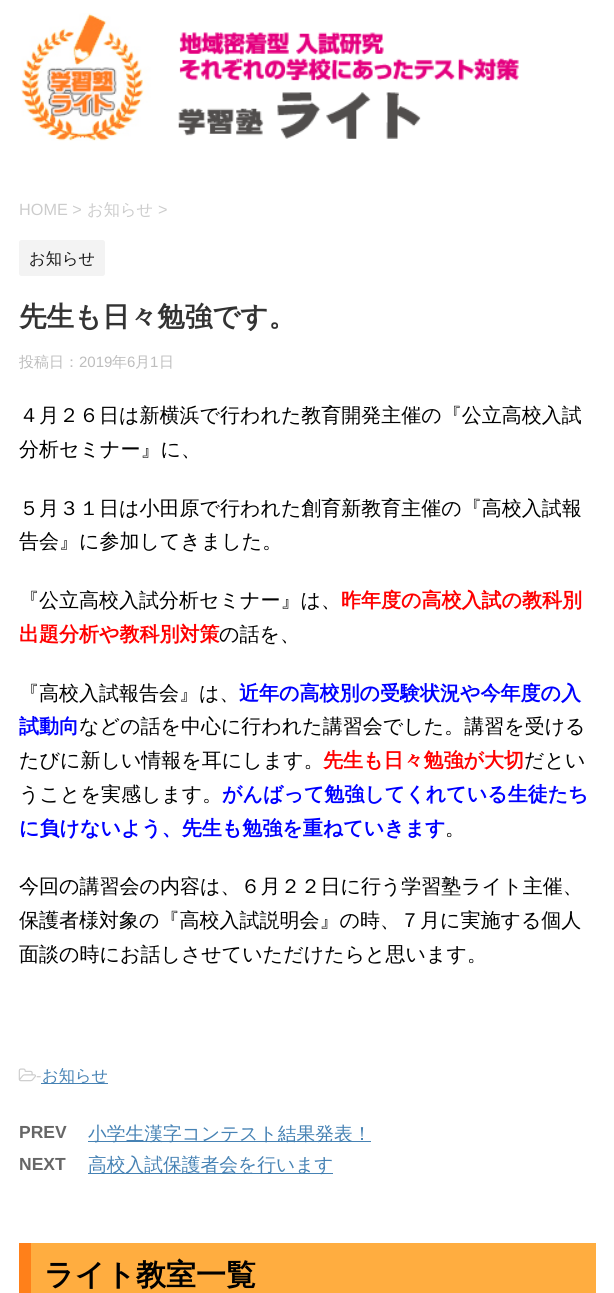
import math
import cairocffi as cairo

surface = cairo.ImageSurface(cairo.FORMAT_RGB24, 614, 1293)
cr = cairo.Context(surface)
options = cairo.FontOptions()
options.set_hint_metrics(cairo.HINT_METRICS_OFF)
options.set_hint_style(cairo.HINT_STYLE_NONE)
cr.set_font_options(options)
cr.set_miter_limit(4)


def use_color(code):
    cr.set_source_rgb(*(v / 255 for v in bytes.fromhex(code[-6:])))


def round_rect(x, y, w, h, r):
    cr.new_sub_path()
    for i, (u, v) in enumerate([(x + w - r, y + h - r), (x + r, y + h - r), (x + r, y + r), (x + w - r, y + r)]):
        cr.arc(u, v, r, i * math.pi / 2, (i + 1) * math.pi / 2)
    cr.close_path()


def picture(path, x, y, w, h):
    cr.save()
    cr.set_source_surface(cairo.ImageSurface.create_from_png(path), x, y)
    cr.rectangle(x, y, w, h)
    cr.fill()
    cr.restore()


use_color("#ffffff")
cr.paint()
picture("img1.png", 21, 13, 498, 128)
cr.select_font_face("Liberation Sans")
cr.set_font_size(16.25)
use_color("#cccccc")
cr.move_to(19, 215)
cr.show_text("HOME >")
cr.select_font_face("WenQuanYi Zen Hei Medium")
cr.move_to(87, 215)
cr.show_text("お知らせ")
cr.select_font_face("Liberation Sans")
cr.move_to(158, 215)
cr.show_text(">")
use_color("#f3f3f3")
round_rect(19, 240, 86, 36, 2.5)
cr.fill()
cr.select_font_face("WenQuanYi Zen Hei Medium")
use_color("#1a1a1a")
cr.move_to(29, 264)
cr.show_text("お知らせ")
cr.select_font_face("WenQuanYi Zen Hei", cairo.FONT_SLANT_NORMAL, cairo.FONT_WEIGHT_BOLD)
cr.set_font_size(27.5)
use_color("#333333")
cr.move_to(19, 326)
cr.show_text("先生も日々勉強です。")
cr.select_font_face("WenQuanYi Zen Hei Medium")
cr.set_font_size(15)
use_color("#bdbdbd")
cr.move_to(19, 367)
cr.show_text("投稿日：")
cr.select_font_face("Liberation Sans")
cr.move_to(79, 367)
cr.show_text("2019")
cr.select_font_face("WenQuanYi Zen Hei Medium")
cr.move_to(112, 367)
cr.show_text("年")
cr.select_font_face("Liberation Sans")
cr.move_to(127, 367)
cr.show_text("6")
cr.select_font_face("WenQuanYi Zen Hei Medium")
cr.move_to(135, 367)
cr.show_text("月")
cr.select_font_face("Liberation Sans")
cr.move_to(150, 367)
cr.show_text("1")
cr.select_font_face("WenQuanYi Zen Hei Medium")
cr.move_to(159, 367)
cr.show_text("日")
cr.set_font_size(20)
use_color("#000000")
cr.move_to(19, 422)
cr.show_text("４月２６日は新横浜で行われた教育開発主催の『公立高校入試")
cr.move_to(19, 456)
cr.show_text("分析セミナー』に、")
cr.move_to(19, 515)
cr.show_text("５月３１日は小田原で行われた創育新教育主催の『高校入試報")
cr.move_to(19, 548)
cr.show_text("告会』に参加してきました。")
cr.move_to(19, 607)
cr.show_text("『公立高校入試分析セミナー』は、")
cr.select_font_face("WenQuanYi Zen Hei", cairo.FONT_SLANT_NORMAL, cairo.FONT_WEIGHT_BOLD)
use_color("#ff0000")
cr.move_to(341, 607)
cr.show_text("昨年度の高校入試の教科別")
cr.move_to(19, 641)
cr.show_text("出題分析や教科別対策")
cr.select_font_face("WenQuanYi Zen Hei Medium")
use_color("#000000")
cr.move_to(219, 641)
cr.show_text("の話を、")
cr.move_to(19, 700)
cr.show_text("『高校入試報告会』は、")
cr.select_font_face("WenQuanYi Zen Hei", cairo.FONT_SLANT_NORMAL, cairo.FONT_WEIGHT_BOLD)
use_color("#0000ff")
cr.move_to(239, 700)
cr.show_text("近年の高校別の受験状況や今年度の入")
cr.move_to(19, 733)
cr.show_text("試動向")
cr.select_font_face("WenQuanYi Zen Hei Medium")
use_color("#000000")
cr.move_to(79, 733)
cr.show_text("などの話を中心に行われた講習会でした。講習を受ける")
cr.move_to(19, 767)
cr.show_text("たびに新しい情報を耳にします。")
cr.select_font_face("WenQuanYi Zen Hei", cairo.FONT_SLANT_NORMAL, cairo.FONT_WEIGHT_BOLD)
use_color("#ff0000")
cr.move_to(323, 767)
cr.show_text("先生も日々勉強が大切")
cr.select_font_face("WenQuanYi Zen Hei Medium")
use_color("#000000")
cr.move_to(524, 767)
cr.show_text("だとい")
cr.move_to(19, 801)
cr.show_text("うことを実感します。")
cr.select_font_face("WenQuanYi Zen Hei", cairo.FONT_SLANT_NORMAL, cairo.FONT_WEIGHT_BOLD)
use_color("#0000ff")
cr.move_to(222, 801)
cr.show_text("がんばって勉強してくれている生徒たち")
cr.move_to(19, 835)
cr.show_text("に負けないよう、先生も勉強を重ねていきます")
cr.select_font_face("WenQuanYi Zen Hei Medium")
use_color("#000000")
cr.move_to(445, 835)
cr.show_text("。")
cr.move_to(19, 893)
cr.show_text("今回の講習会の内容は、６月２２日に行う学習塾ライト主催、")
cr.move_to(19, 927)
cr.show_text("保護者様対象の『高校入試説明会』の時、７月に実施する個人")
cr.move_to(19, 961)
cr.show_text("面談の時にお話しさせていただけたらと思います。")
picture("img2.png", 18, 1068, 18, 14)
cr.select_font_face("Liberation Sans")
cr.set_font_size(16.25)
use_color("#cccccc")
cr.move_to(36, 1081)
cr.show_text("-")
use_color("#4682b4")
cr.rectangle(41, 1083, 67, 1)
cr.fill()
cr.select_font_face("WenQuanYi Zen Hei Medium")
cr.move_to(42, 1081)
cr.show_text("お知らせ")
cr.select_font_face("Liberation Sans", cairo.FONT_SLANT_NORMAL, cairo.FONT_WEIGHT_BOLD)
cr.set_font_size(17.5)
use_color("#666666")
cr.move_to(19, 1138)
cr.show_text("PREV")
use_color("#4682b4")
cr.rectangle(88, 1141, 283, 1)
cr.fill()
cr.select_font_face("WenQuanYi Zen Hei Medium")
cr.set_font_size(18.75)
cr.move_to(88, 1140)
cr.show_text("小学生漢字コンテスト結果発表！")
cr.select_font_face("Liberation Sans", cairo.FONT_SLANT_NORMAL, cairo.FONT_WEIGHT_BOLD)
cr.set_font_size(17.5)
use_color("#666666")
cr.move_to(19, 1170)
cr.show_text("NEXT")
use_color("#4682b4")
cr.rectangle(88, 1173, 245, 1)
cr.fill()
cr.select_font_face("WenQuanYi Zen Hei Medium")
cr.set_font_size(18.75)
cr.move_to(88, 1171)
cr.show_text("高校入試保護者会を行います")
use_color("#ffad40")
cr.rectangle(31, 1243, 565, 50)
cr.fill()
use_color("#ff801a")
cr.rectangle(19, 1243, 12, 50)
cr.fill()
cr.select_font_face("WenQuanYi Zen Hei", cairo.FONT_SLANT_NORMAL, cairo.FONT_WEIGHT_BOLD)
cr.set_font_size(30)
use_color("#000000")
cr.move_to(44, 1285)
cr.show_text("ライト教室一覧")
surface.write_to_png("result.png")
